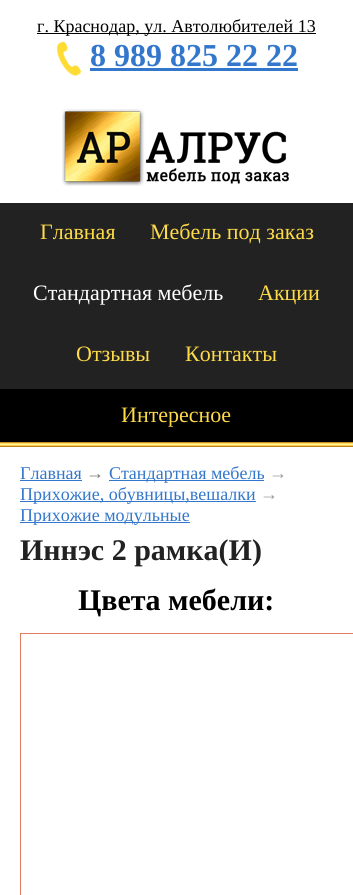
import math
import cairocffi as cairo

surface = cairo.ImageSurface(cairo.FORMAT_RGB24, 353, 895)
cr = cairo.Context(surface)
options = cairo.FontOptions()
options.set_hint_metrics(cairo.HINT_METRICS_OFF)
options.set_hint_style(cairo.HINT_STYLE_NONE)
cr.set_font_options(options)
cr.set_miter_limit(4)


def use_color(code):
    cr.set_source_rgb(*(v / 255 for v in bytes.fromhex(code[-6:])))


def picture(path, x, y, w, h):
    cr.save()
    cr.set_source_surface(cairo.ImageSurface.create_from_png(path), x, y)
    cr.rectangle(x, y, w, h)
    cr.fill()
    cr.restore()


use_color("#222222")
cr.paint()
use_color("#ffffff")
cr.rectangle(0, 0, 353, 203)
cr.fill()
use_color("#000000")
cr.rectangle(37, 33, 279, 1)
cr.fill()
cr.select_font_face("Liberation Serif")
cr.set_font_size(18)
cr.move_to(37, 32)
cr.show_text("г. Краснодар, ул. Автолюбителей 13")
picture("img1.png", 56, 41, 26, 35)
cr.select_font_face("Liberation Serif", cairo.FONT_SLANT_NORMAL, cairo.FONT_WEIGHT_BOLD)
cr.set_font_size(32)
use_color("#3377cc")
cr.move_to(90, 66)
cr.show_text("8 989 825 22 22")
cr.rectangle(90, 68, 208, 3)
cr.fill()
picture("img2.png", 62, 109, 227, 77)
picture("img3.png", 0, 389, 353, 58)
cr.select_font_face("Liberation Serif")
cr.set_font_size(22)
use_color("#fdda48")
cr.move_to(40, 239)
cr.show_text("Главная")
cr.move_to(150, 239)
cr.show_text("Мебель под заказ")
use_color("#ffffff")
cr.move_to(33, 300)
cr.show_text("Стандартная мебель")
use_color("#fdda48")
cr.move_to(258, 300)
cr.show_text("Акции")
cr.move_to(76, 361)
cr.show_text("Отзывы")
cr.move_to(185, 361)
cr.show_text("Контакты")
cr.move_to(121, 422)
cr.show_text("Интересное")
use_color("#ffffff")
cr.rectangle(0, 447, 353, 448)
cr.fill()
cr.set_font_size(18)
use_color("#3377cc")
cr.move_to(20, 479)
cr.show_text("Главная")
cr.rectangle(20, 480, 62, 1)
cr.fill()
use_color("#777777")
cr.move_to(86, 479)
cr.show_text("→")
use_color("#3377cc")
cr.rectangle(109, 480, 155, 1)
cr.fill()
cr.move_to(109, 479)
cr.show_text("Стандартная мебель")
use_color("#999999")
cr.move_to(269, 479)
cr.show_text("→")
use_color("#3377cc")
cr.rectangle(20, 501, 236, 1)
cr.fill()
cr.move_to(20, 500)
cr.show_text("Прихожие, обувницы,вешалки")
use_color("#999999")
cr.move_to(260, 500)
cr.show_text("→")
use_color("#3377cc")
cr.rectangle(20, 522, 170, 1)
cr.fill()
cr.move_to(20, 521)
cr.show_text("Прихожие модульные")
cr.select_font_face("Liberation Serif", cairo.FONT_SLANT_NORMAL, cairo.FONT_WEIGHT_BOLD)
cr.set_font_size(30)
use_color("#222222")
cr.move_to(20, 560)
cr.show_text("Иннэс 2 рамка(И)")
use_color("#000000")
cr.move_to(78, 610)
cr.show_text("Цвета мебели:")
use_color("#de7d61")
cr.rectangle(20, 633, 333, 1)
cr.fill()
cr.rectangle(20, 633, 1, 262)
cr.fill()
surface.write_to_png("result.png")
